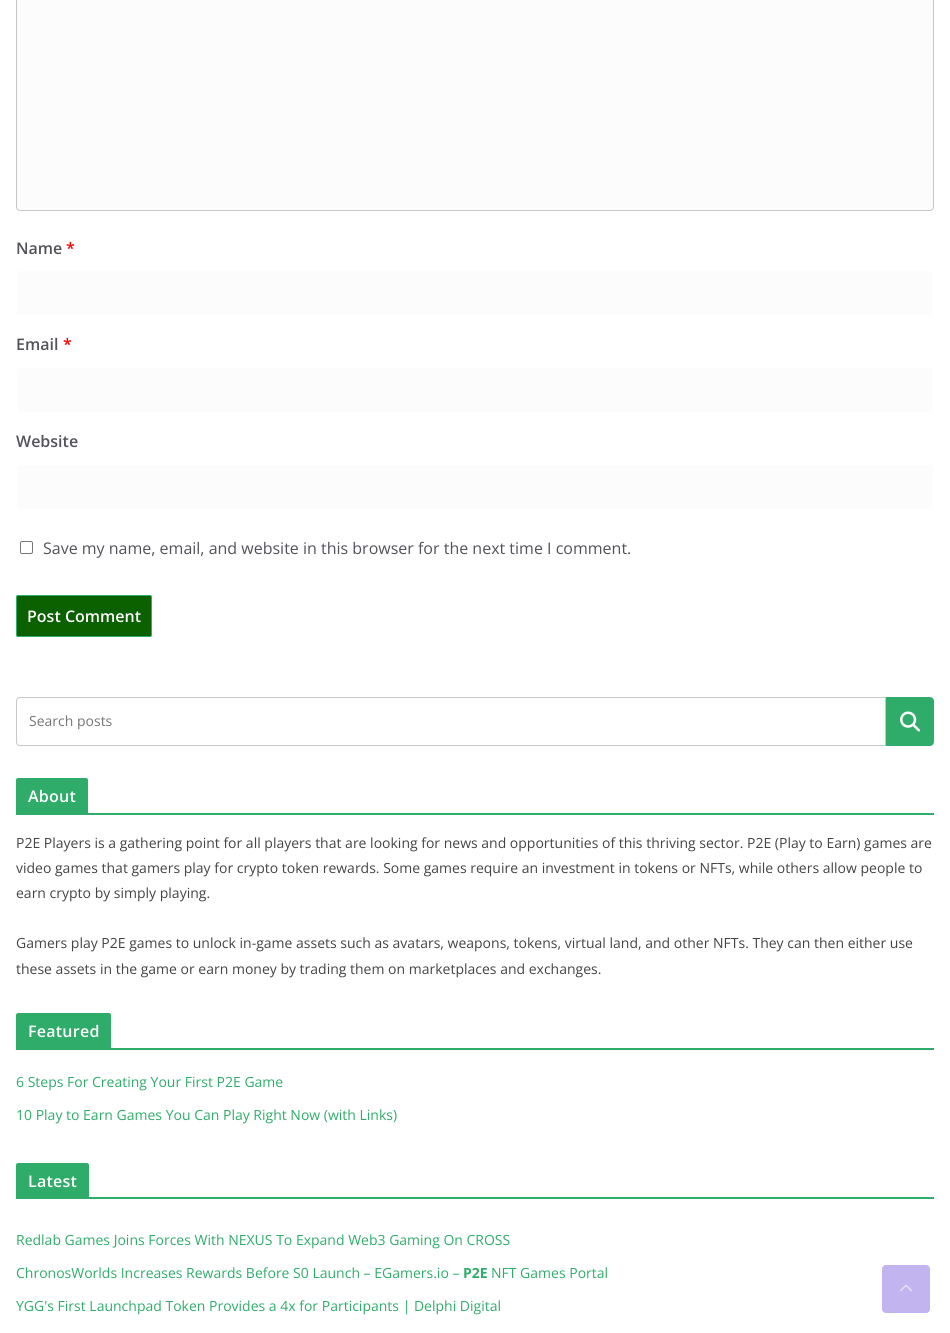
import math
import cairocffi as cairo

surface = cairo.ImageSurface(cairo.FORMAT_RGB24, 950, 1333)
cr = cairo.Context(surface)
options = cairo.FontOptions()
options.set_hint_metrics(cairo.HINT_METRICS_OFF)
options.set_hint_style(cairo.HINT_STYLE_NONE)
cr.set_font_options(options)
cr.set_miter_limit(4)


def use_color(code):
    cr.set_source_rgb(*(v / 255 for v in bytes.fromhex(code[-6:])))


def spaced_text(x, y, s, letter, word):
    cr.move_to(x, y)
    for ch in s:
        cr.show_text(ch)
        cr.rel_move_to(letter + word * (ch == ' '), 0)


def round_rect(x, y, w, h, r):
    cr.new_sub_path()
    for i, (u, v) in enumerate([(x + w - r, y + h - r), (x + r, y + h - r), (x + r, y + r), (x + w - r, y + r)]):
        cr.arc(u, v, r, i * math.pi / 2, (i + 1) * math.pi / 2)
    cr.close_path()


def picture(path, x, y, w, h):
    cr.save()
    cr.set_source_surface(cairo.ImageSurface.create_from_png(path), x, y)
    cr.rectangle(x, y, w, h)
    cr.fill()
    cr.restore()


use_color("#ffffff")
cr.paint()
use_color("#fcfcfc")
round_rect(16.5, -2.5, 917, 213, 3.5)
cr.fill_preserve()
use_color("#c7c7c7")
cr.set_line_width(1)
cr.stroke()
cr.select_font_face("Open Sans SemiBold")
cr.set_font_size(16)
use_color("#52525b")
cr.move_to(16, 254)
cr.show_text("Name")
use_color("#ff0000")
cr.move_to(66, 254)
cr.show_text("*")
use_color("#fcfcfc")
round_rect(16.5, 270.5, 917, 45, 3.5)
cr.fill_preserve()
use_color("#ffffff")
cr.stroke()
use_color("#52525b")
cr.move_to(16, 350)
cr.show_text("Email")
use_color("#ff0000")
cr.move_to(63, 350)
cr.show_text("*")
use_color("#fcfcfc")
round_rect(16.5, 367.5, 917, 45, 3.5)
cr.fill_preserve()
use_color("#ffffff")
cr.stroke()
use_color("#52525b")
cr.move_to(16, 447)
cr.show_text("Website")
use_color("#fcfcfc")
round_rect(16.5, 464.5, 917, 45, 3.5)
cr.fill_preserve()
use_color("#ffffff")
cr.stroke()
round_rect(20.5, 541.5, 12, 12, 1.5)
use_color("#767676")
cr.stroke()
cr.select_font_face("Open Sans")
use_color("#52525b")
cr.move_to(43, 554)
cr.show_text("Save my name, email, and website in this browser for the next time I comment.")
use_color("#0b6000")
round_rect(16.5, 595.5, 135, 41, 1.5)
cr.fill_preserve()
use_color("#2fac69")
cr.stroke()
cr.select_font_face("Open Sans SemiBold")
use_color("#ffffff")
cr.move_to(27, 622)
cr.show_text("Post Comment")
cr.new_path()
cr.move_to(20, 697.5)
cr.line_to(885.5, 697.5)
cr.line_to(885.5, 745.5)
cr.line_to(20, 745.5)
cr.curve_to(18, 745.5, 16.5, 744, 16.5, 742)
cr.line_to(16.5, 701)
cr.curve_to(16.5, 699, 18, 697.5, 20, 697.5)
cr.close_path()
use_color("#c7c7c7")
cr.stroke()
cr.select_font_face("Open Sans")
cr.set_font_size(14)
use_color("#757575")
cr.move_to(29, 726)
cr.show_text("Search posts")
use_color("#2fac69")
cr.new_path()
cr.move_to(886, 697)
cr.line_to(930, 697)
cr.curve_to(932, 697, 934, 699, 934, 701)
cr.line_to(934, 742)
cr.curve_to(934, 744, 932, 746, 930, 746)
cr.line_to(886, 746)
cr.close_path()
cr.fill()
picture("img1.png", 900, 711, 20, 21)
cr.rectangle(16, 813, 918, 2)
cr.fill()
cr.new_path()
cr.move_to(18, 778)
cr.line_to(86, 778)
cr.curve_to(87, 778, 88, 779, 88, 780)
cr.line_to(88, 813)
cr.line_to(16, 813)
cr.line_to(16, 780)
cr.curve_to(16, 779, 17, 778, 18, 778)
cr.close_path()
cr.fill()
cr.select_font_face("Open Sans SemiBold")
cr.set_font_size(16)
use_color("#ffffff")
spaced_text(28, 802, "About", 0.25, 0)
cr.select_font_face("Open Sans")
cr.set_font_size(14)
use_color("#444444")
cr.move_to(16, 848)
cr.show_text("P2E Players is a gathering point for all players that are looking for news and opportunities of this thriving sector. P2E (Play to Earn) games are")
cr.move_to(16, 873)
cr.show_text("video games that gamers play for crypto token rewards. Some games require an investment in tokens or NFTs, while others allow people to")
cr.move_to(16, 898)
cr.show_text("earn crypto by simply playing.")
cr.move_to(16, 948)
cr.show_text("Gamers play P2E games to unlock in-game assets such as avatars, weapons, tokens, virtual land, and other NFTs. They can then either use")
cr.move_to(16, 974)
cr.show_text("these assets in the game or earn money by trading them on marketplaces and exchanges.")
use_color("#2fac69")
cr.rectangle(16, 1048, 918, 2)
cr.fill()
cr.new_path()
cr.move_to(18, 1013)
cr.line_to(109, 1013)
cr.curve_to(110, 1013, 111, 1014, 111, 1015)
cr.line_to(111, 1048)
cr.line_to(16, 1048)
cr.line_to(16, 1015)
cr.curve_to(16, 1014, 17, 1013, 18, 1013)
cr.close_path()
cr.fill()
cr.select_font_face("Open Sans SemiBold")
cr.set_font_size(16)
use_color("#ffffff")
spaced_text(28, 1037, "Featured", 0.25, 0)
cr.select_font_face("Open Sans")
cr.set_font_size(14)
use_color("#2fac69")
cr.move_to(16, 1087)
cr.show_text("6 Steps For Creating Your First P2E Game")
cr.move_to(16, 1120)
cr.show_text("10 Play to Earn Games You Can Play Right Now (with Links)")
cr.rectangle(16, 1197, 918, 2)
cr.fill()
cr.new_path()
cr.move_to(18, 1163)
cr.line_to(87, 1163)
cr.curve_to(88, 1163, 89, 1164, 89, 1165)
cr.line_to(89, 1197)
cr.line_to(16, 1197)
cr.line_to(16, 1165)
cr.curve_to(16, 1164, 17, 1163, 18, 1163)
cr.close_path()
cr.fill()
cr.select_font_face("Open Sans SemiBold")
cr.set_font_size(16)
use_color("#ffffff")
spaced_text(28, 1187, "Latest", 0.25, 0)
cr.select_font_face("Open Sans")
cr.set_font_size(14)
use_color("#2fac69")
cr.move_to(16, 1245)
cr.show_text("Redlab Games Joins Forces With NEXUS To Expand Web3 Gaming On CROSS")
cr.move_to(16, 1278)
cr.show_text("ChronosWorlds Increases Rewards Before S0 Launch – EGamers.io –")
cr.select_font_face("Open Sans", cairo.FONT_SLANT_NORMAL, cairo.FONT_WEIGHT_BOLD)
cr.move_to(463, 1278)
cr.show_text("P2E")
cr.select_font_face("Open Sans")
cr.move_to(491, 1278)
cr.show_text("NFT Games Portal")
cr.move_to(16, 1311)
cr.show_text("YGG's First Launchpad Token Provides a 4x for Participants | Delphi Digital")
use_color("#c1b4ef")
round_rect(882, 1265, 48, 48, 4)
cr.fill()
picture("img2.png", 900, 1284, 12, 8)
surface.write_to_png("result.png")
